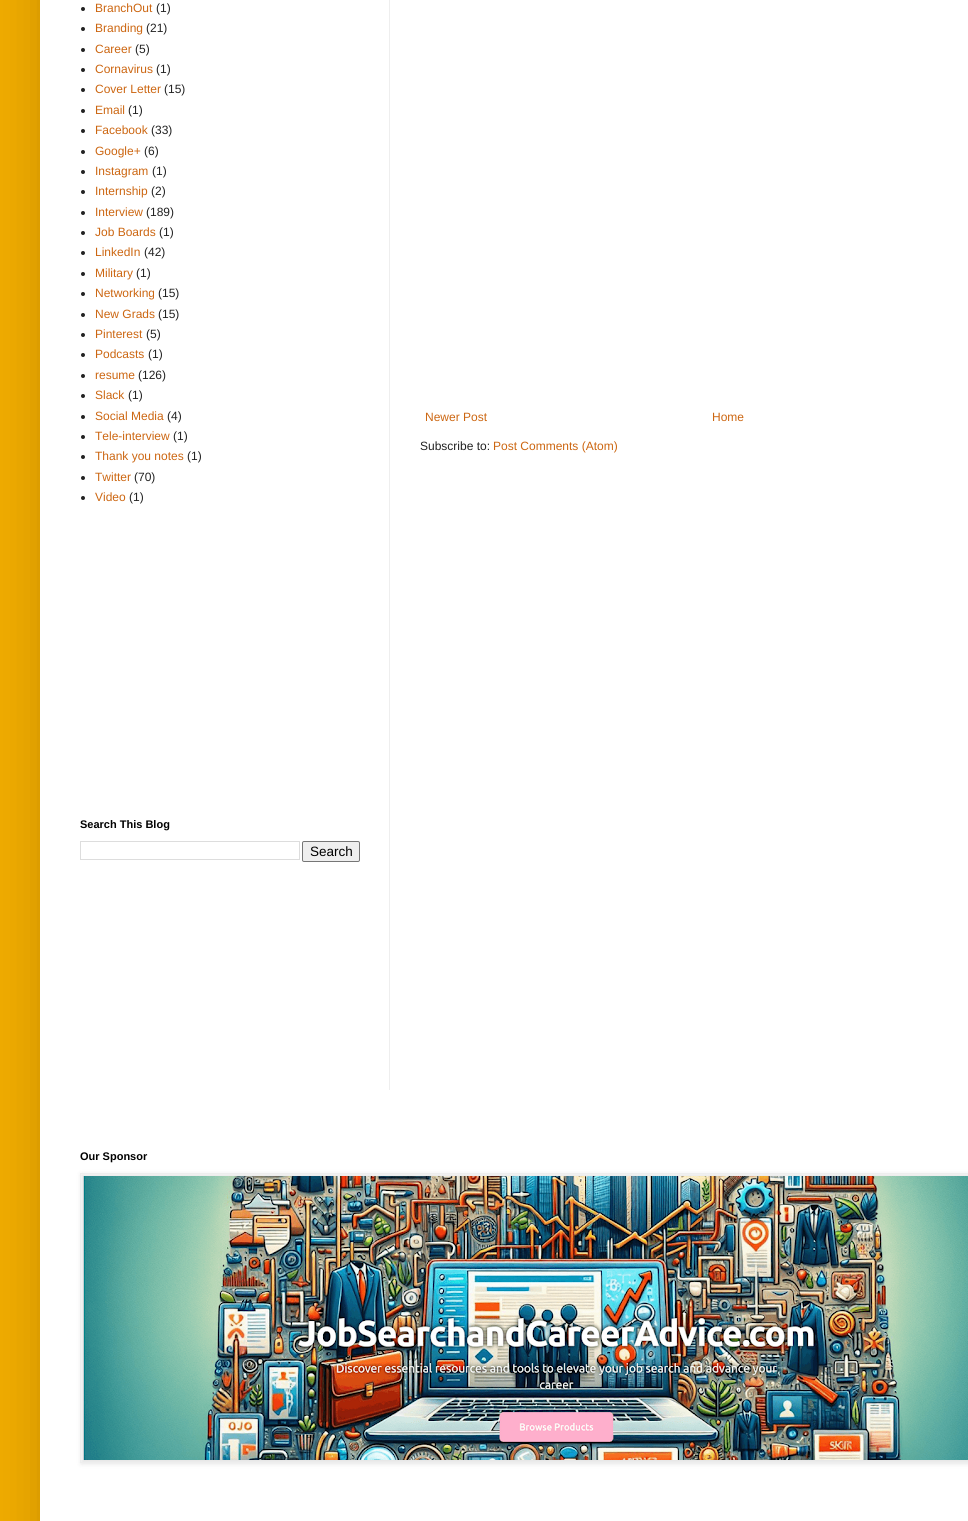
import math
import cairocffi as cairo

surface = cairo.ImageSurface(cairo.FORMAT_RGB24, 968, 1521)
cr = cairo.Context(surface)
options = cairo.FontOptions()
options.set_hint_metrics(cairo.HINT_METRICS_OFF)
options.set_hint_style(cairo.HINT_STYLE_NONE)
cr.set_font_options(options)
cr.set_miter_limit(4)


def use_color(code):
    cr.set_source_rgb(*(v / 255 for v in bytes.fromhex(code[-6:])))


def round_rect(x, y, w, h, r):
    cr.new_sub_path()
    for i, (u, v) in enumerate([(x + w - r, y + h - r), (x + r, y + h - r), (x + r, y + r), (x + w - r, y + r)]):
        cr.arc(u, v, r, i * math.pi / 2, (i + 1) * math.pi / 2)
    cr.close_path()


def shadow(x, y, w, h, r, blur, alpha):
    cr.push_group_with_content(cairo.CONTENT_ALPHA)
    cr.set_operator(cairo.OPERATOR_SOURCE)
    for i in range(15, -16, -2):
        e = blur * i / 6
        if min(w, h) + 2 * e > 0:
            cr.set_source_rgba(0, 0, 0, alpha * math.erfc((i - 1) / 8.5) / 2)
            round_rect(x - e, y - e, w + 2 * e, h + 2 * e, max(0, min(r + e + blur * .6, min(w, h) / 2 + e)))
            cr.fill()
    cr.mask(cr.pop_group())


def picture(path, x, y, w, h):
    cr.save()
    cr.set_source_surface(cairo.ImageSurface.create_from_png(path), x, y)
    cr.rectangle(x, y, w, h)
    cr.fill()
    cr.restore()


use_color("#eeaa00")
cr.paint()
use_color("#000000")
shadow(40, -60, 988, 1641, 0, 20, 0.15)
use_color("#ffffff")
cr.rectangle(40, 0, 928, 1521)
cr.fill()
use_color("#eeeeee")
cr.rectangle(389, 0, 1, 1090)
cr.fill()
use_color("#222222")
cr.arc(83, 9, 2, 0, 2 * math.pi)
cr.fill()
cr.select_font_face("Liberation Sans")
cr.set_font_size(12)
use_color("#cc6611")
cr.move_to(95, 12)
cr.show_text("BranchOut")
use_color("#222222")
cr.move_to(156, 12)
cr.show_text("(1)")
cr.new_path()
cr.arc(83, 29, 2, 0, 2 * math.pi)
cr.fill()
use_color("#cc6611")
cr.move_to(95, 32)
cr.show_text("Branding")
use_color("#222222")
cr.move_to(146, 32)
cr.show_text("(21)")
cr.new_path()
cr.arc(83, 50, 2, 0, 2 * math.pi)
cr.fill()
use_color("#cc6611")
cr.move_to(95, 53)
cr.show_text("Career")
use_color("#222222")
cr.move_to(135, 53)
cr.show_text("(5)")
cr.new_path()
cr.arc(83, 70, 2, 0, 2 * math.pi)
cr.fill()
use_color("#cc6611")
cr.move_to(95, 73)
cr.show_text("Cornavirus")
use_color("#222222")
cr.move_to(156, 73)
cr.show_text("(1)")
cr.new_path()
cr.arc(83, 90, 2, 0, 2 * math.pi)
cr.fill()
use_color("#cc6611")
cr.move_to(95, 93)
cr.show_text("Cover Letter")
use_color("#222222")
cr.move_to(164, 93)
cr.show_text("(15)")
cr.new_path()
cr.arc(83, 111, 2, 0, 2 * math.pi)
cr.fill()
use_color("#cc6611")
cr.move_to(95, 114)
cr.show_text("Email")
use_color("#222222")
cr.move_to(128, 114)
cr.show_text("(1)")
cr.new_path()
cr.arc(83, 131, 2, 0, 2 * math.pi)
cr.fill()
use_color("#cc6611")
cr.move_to(95, 134)
cr.show_text("Facebook")
use_color("#222222")
cr.move_to(151, 134)
cr.show_text("(33)")
cr.new_path()
cr.arc(83, 152, 2, 0, 2 * math.pi)
cr.fill()
use_color("#cc6611")
cr.move_to(95, 155)
cr.show_text("Google+")
use_color("#222222")
cr.move_to(144, 155)
cr.show_text("(6)")
cr.new_path()
cr.arc(83, 172, 2, 0, 2 * math.pi)
cr.fill()
use_color("#cc6611")
cr.move_to(95, 175)
cr.show_text("Instagram")
use_color("#222222")
cr.move_to(152, 175)
cr.show_text("(1)")
cr.new_path()
cr.arc(83, 192, 2, 0, 2 * math.pi)
cr.fill()
use_color("#cc6611")
cr.move_to(95, 195)
cr.show_text("Internship")
use_color("#222222")
cr.move_to(151, 195)
cr.show_text("(2)")
cr.new_path()
cr.arc(83, 213, 2, 0, 2 * math.pi)
cr.fill()
use_color("#cc6611")
cr.move_to(95, 216)
cr.show_text("Interview")
use_color("#222222")
cr.move_to(146, 216)
cr.show_text("(189)")
cr.new_path()
cr.arc(83, 233, 2, 0, 2 * math.pi)
cr.fill()
use_color("#cc6611")
cr.move_to(95, 236)
cr.show_text("Job Boards")
use_color("#222222")
cr.move_to(159, 236)
cr.show_text("(1)")
cr.new_path()
cr.arc(83, 253, 2, 0, 2 * math.pi)
cr.fill()
use_color("#cc6611")
cr.move_to(95, 256)
cr.show_text("LinkedIn")
use_color("#222222")
cr.move_to(144, 256)
cr.show_text("(42)")
cr.new_path()
cr.arc(83, 274, 2, 0, 2 * math.pi)
cr.fill()
use_color("#cc6611")
cr.move_to(95, 277)
cr.show_text("Military")
use_color("#222222")
cr.move_to(136, 277)
cr.show_text("(1)")
cr.new_path()
cr.arc(83, 294, 2, 0, 2 * math.pi)
cr.fill()
use_color("#cc6611")
cr.move_to(95, 297)
cr.show_text("Networking")
use_color("#222222")
cr.move_to(158, 297)
cr.show_text("(15)")
cr.new_path()
cr.arc(83, 315, 2, 0, 2 * math.pi)
cr.fill()
use_color("#cc6611")
cr.move_to(95, 318)
cr.show_text("New Grads")
use_color("#222222")
cr.move_to(158, 318)
cr.show_text("(15)")
cr.new_path()
cr.arc(83, 335, 2, 0, 2 * math.pi)
cr.fill()
use_color("#cc6611")
cr.move_to(95, 338)
cr.show_text("Pinterest")
use_color("#222222")
cr.move_to(146, 338)
cr.show_text("(5)")
cr.new_path()
cr.arc(83, 355, 2, 0, 2 * math.pi)
cr.fill()
use_color("#cc6611")
cr.move_to(95, 358)
cr.show_text("Podcasts")
use_color("#222222")
cr.move_to(148, 358)
cr.show_text("(1)")
cr.new_path()
cr.arc(83, 376, 2, 0, 2 * math.pi)
cr.fill()
use_color("#cc6611")
cr.move_to(95, 379)
cr.show_text("resume")
use_color("#222222")
cr.move_to(138, 379)
cr.show_text("(126)")
cr.new_path()
cr.arc(83, 396, 2, 0, 2 * math.pi)
cr.fill()
use_color("#cc6611")
cr.move_to(95, 399)
cr.show_text("Slack")
use_color("#222222")
cr.move_to(128, 399)
cr.show_text("(1)")
cr.new_path()
cr.arc(83, 417, 2, 0, 2 * math.pi)
cr.fill()
use_color("#cc6611")
cr.move_to(95, 420)
cr.show_text("Social Media")
use_color("#222222")
cr.move_to(167, 420)
cr.show_text("(4)")
cr.new_path()
cr.arc(83, 437, 2, 0, 2 * math.pi)
cr.fill()
use_color("#cc6611")
cr.move_to(95, 440)
cr.show_text("Tele-interview")
use_color("#222222")
cr.move_to(173, 440)
cr.show_text("(1)")
cr.new_path()
cr.arc(83, 457, 2, 0, 2 * math.pi)
cr.fill()
use_color("#cc6611")
cr.move_to(95, 460)
cr.show_text("Thank you notes")
use_color("#222222")
cr.move_to(187, 460)
cr.show_text("(1)")
cr.new_path()
cr.arc(83, 478, 2, 0, 2 * math.pi)
cr.fill()
use_color("#cc6611")
cr.move_to(95, 481)
cr.show_text("Twitter")
use_color("#222222")
cr.move_to(134, 481)
cr.show_text("(70)")
cr.new_path()
cr.arc(83, 498, 2, 0, 2 * math.pi)
cr.fill()
use_color("#cc6611")
cr.move_to(95, 501)
cr.show_text("Video")
use_color("#222222")
cr.move_to(129, 501)
cr.show_text("(1)")
cr.select_font_face("Liberation Sans", cairo.FONT_SLANT_NORMAL, cairo.FONT_WEIGHT_BOLD)
cr.set_font_size(11)
use_color("#000000")
cr.move_to(80, 828)
cr.show_text("Search This Blog")
cr.rectangle(80.5, 841.5, 219, 18)
use_color("#dddddd")
cr.set_line_width(1)
cr.stroke()
use_color("#efefef")
round_rect(302.5, 841.5, 57, 20, 1.5)
cr.fill_preserve()
use_color("#767676")
cr.stroke()
cr.select_font_face("Liberation Sans")
cr.set_font_size(13.5)
use_color("#000000")
cr.move_to(310, 856)
cr.show_text("Search")
cr.set_font_size(12)
use_color("#cc6611")
cr.move_to(425, 421)
cr.show_text("Newer Post")
cr.move_to(712, 421)
cr.show_text("Home")
use_color("#222222")
cr.move_to(420, 450)
cr.show_text("Subscribe to:")
use_color("#cc6611")
cr.move_to(493, 450)
cr.show_text("Post Comments (Atom)")
cr.select_font_face("Liberation Sans", cairo.FONT_SLANT_NORMAL, cairo.FONT_WEIGHT_BOLD)
cr.set_font_size(11)
use_color("#000000")
cr.move_to(80, 1160)
cr.show_text("Our Sponsor")
use_color("#000000")
shadow(81, 1174, 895, 290, 0, 2.5, 0.1)
cr.rectangle(80.5, 1173.5, 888, 289)
use_color("#eeeeee")
cr.stroke()
picture("img1.png", 83, 1176, 885, 284)
surface.write_to_png("result.png")
